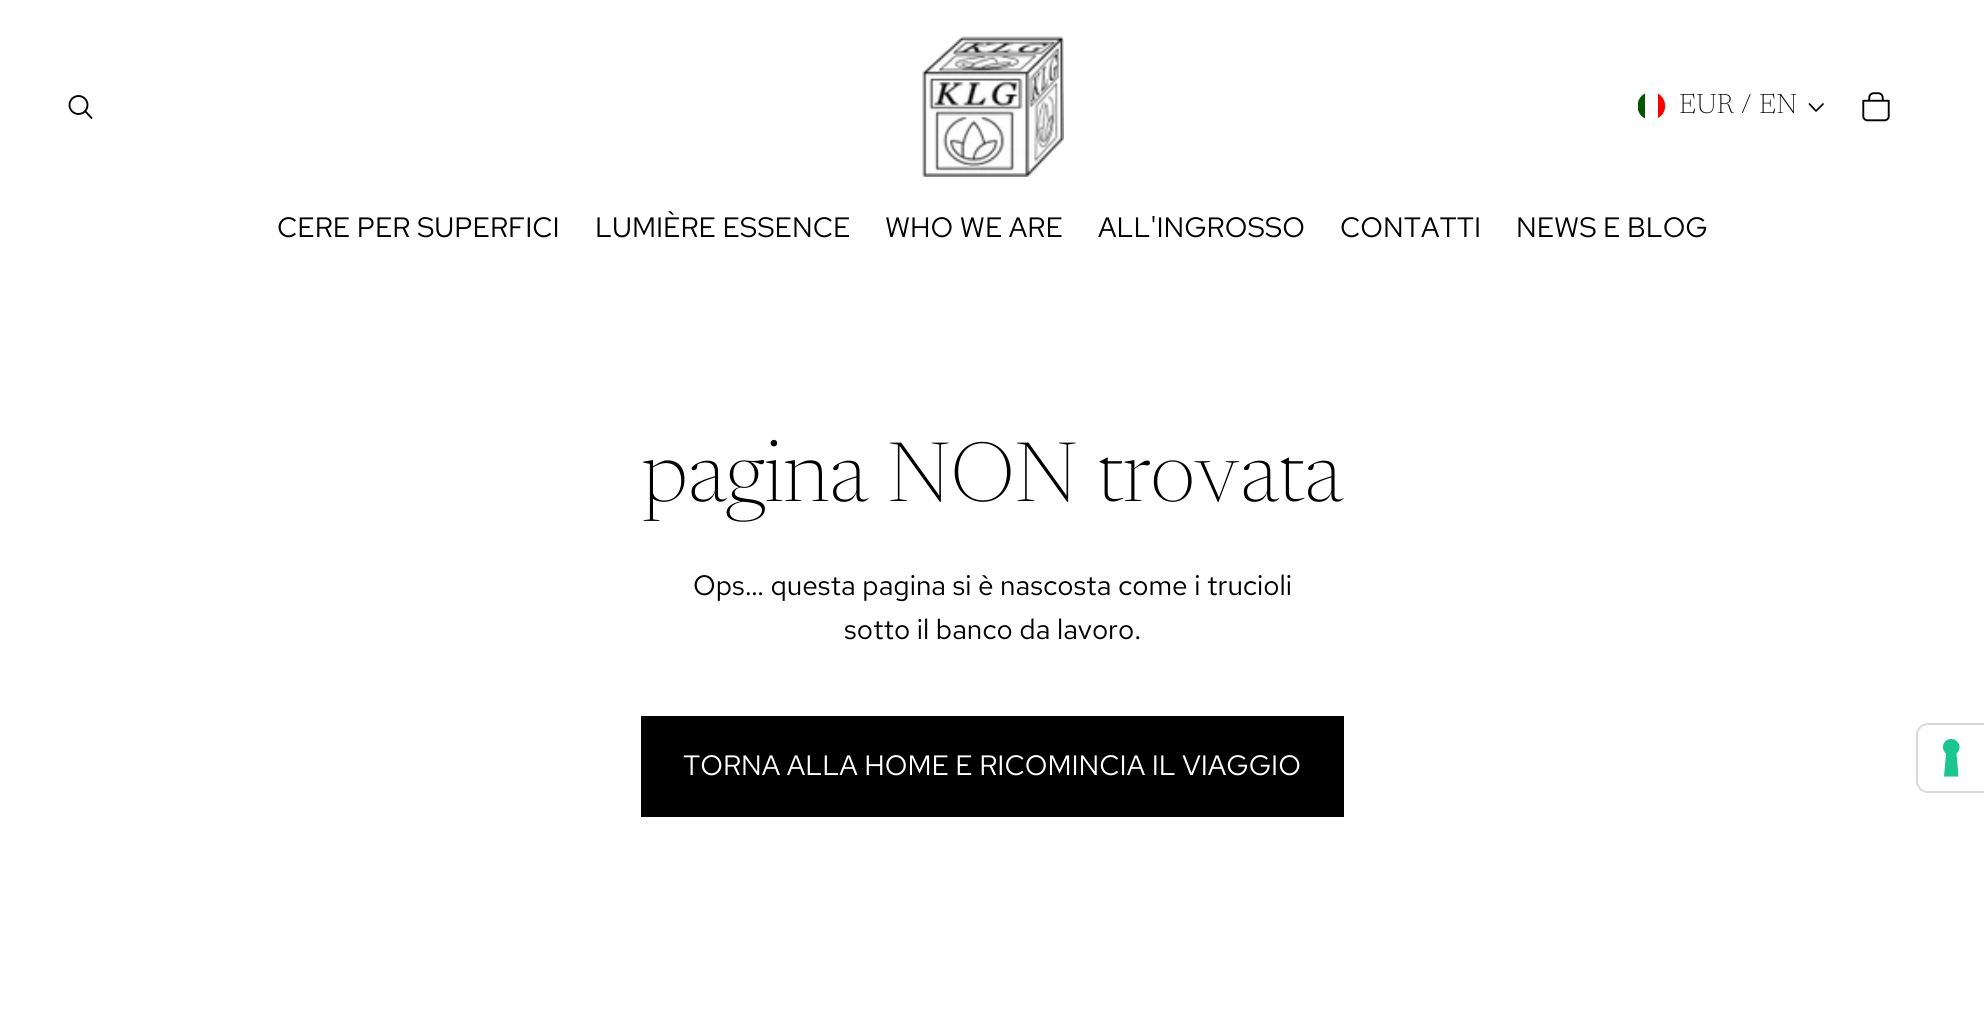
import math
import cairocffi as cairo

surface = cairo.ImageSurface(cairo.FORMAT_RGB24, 1984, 1009)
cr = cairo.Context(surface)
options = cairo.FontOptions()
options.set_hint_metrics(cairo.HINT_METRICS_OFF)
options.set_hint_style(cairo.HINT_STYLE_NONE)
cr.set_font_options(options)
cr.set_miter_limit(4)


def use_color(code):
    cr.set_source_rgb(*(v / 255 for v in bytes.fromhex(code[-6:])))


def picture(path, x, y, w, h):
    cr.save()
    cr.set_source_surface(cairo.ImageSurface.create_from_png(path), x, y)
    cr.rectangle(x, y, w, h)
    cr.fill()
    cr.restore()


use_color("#ffffff")
cr.paint()
cr.arc(78.5, 105, 9, 0, 2 * math.pi)
use_color("#000000")
cr.set_line_width(1.9)
cr.stroke()
cr.new_path()
cr.move_to(85.5, 111.5)
cr.line_to(91.5, 118)
cr.set_line_cap(cairo.LINE_CAP_ROUND)
cr.set_line_join(cairo.LINE_JOIN_ROUND)
cr.stroke()
picture("img1.png", 922, 36, 142, 141)
cr.save()
cr.rectangle(1638, 93, 28, 28)
cr.clip()
use_color("#005700")
cr.new_path()
cr.move_to(1645, 118.5)
cr.curve_to(1635, 113.5, 1635, 98.5, 1645, 93.5)
cr.close_path()
cr.fill()
cr.restore()
use_color("#fc0000")
cr.new_path()
cr.move_to(1658, 93.5)
cr.curve_to(1667.5, 99, 1667.5, 113, 1658, 118)
cr.close_path()
cr.fill()
cr.select_font_face("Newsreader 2 ExtraLight")
cr.set_font_size(28)
use_color("#000000")
cr.move_to(1679, 113)
cr.show_text("EUR")
cr.move_to(1741, 113)
cr.show_text("/")
cr.move_to(1759, 113)
cr.show_text("EN")
cr.new_path()
cr.move_to(1823, 104)
cr.line_to(1816, 111)
cr.line_to(1809.5, 104)
cr.set_line_width(1.7)
cr.stroke()
picture("img2.png", 1862, 92, 28, 30)
cr.select_font_face("Red Hat Text")
cr.move_to(277, 237)
cr.show_text("CERE PER SUPERFICI")
cr.move_to(595, 237)
cr.show_text("LUMIÈRE ESSENCE")
cr.move_to(885, 237)
cr.show_text("WHO WE ARE")
cr.move_to(1098, 237)
cr.show_text("ALL'INGROSSO")
cr.move_to(1340, 237)
cr.show_text("CONTATTI")
cr.move_to(1516, 237)
cr.show_text("NEWS E BLOG")
cr.select_font_face("Newsreader ExtraLight")
cr.set_font_size(84)
cr.move_to(642, 501)
cr.show_text("pagina NON trovata")
cr.select_font_face("Red Hat Text")
cr.set_font_size(28)
cr.move_to(693, 595)
cr.show_text("Ops… questa pagina si è nascosta come i trucioli")
cr.move_to(844, 639)
cr.show_text("sotto il banco da lavoro.")
cr.rectangle(641, 716, 703, 101)
cr.fill()
use_color("#ffffff")
cr.move_to(683, 775)
cr.show_text("TORNA ALLA HOME E RICOMINCIA IL VIAGGIO")
cr.new_path()
cr.move_to(1928, 724)
cr.line_to(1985, 724)
cr.line_to(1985, 792)
cr.line_to(1928, 792)
cr.curve_to(1922, 792, 1917, 787, 1917, 781)
cr.line_to(1917, 735)
cr.curve_to(1917, 729, 1922, 724, 1928, 724)
cr.close_path()
use_color("#d9d9d9")
cr.set_line_width(2)
cr.set_line_cap(cairo.LINE_CAP_BUTT)
cr.set_line_join(cairo.LINE_JOIN_MITER)
cr.stroke()
use_color("#ffffff")
cr.new_path()
cr.move_to(1929, 725)
cr.line_to(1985, 725)
cr.line_to(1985, 791)
cr.line_to(1929, 791)
cr.curve_to(1923, 791, 1918, 786, 1918, 780)
cr.line_to(1918, 736)
cr.curve_to(1918, 730, 1923, 725, 1929, 725)
cr.close_path()
cr.fill()
use_color("#1cc691")
cr.set_fill_rule(cairo.FILL_RULE_EVEN_ODD)
cr.new_path()
cr.move_to(1951, 739)
cr.curve_to(1959, 739, 1962.5, 748.5, 1956.5, 753.5)
cr.line_to(1958.5, 776.5)
cr.line_to(1944, 776.5)
cr.line_to(1946, 753.5)
cr.curve_to(1940, 748.5, 1943.5, 739, 1951, 739)
cr.close_path()
cr.fill()
surface.write_to_png("result.png")
